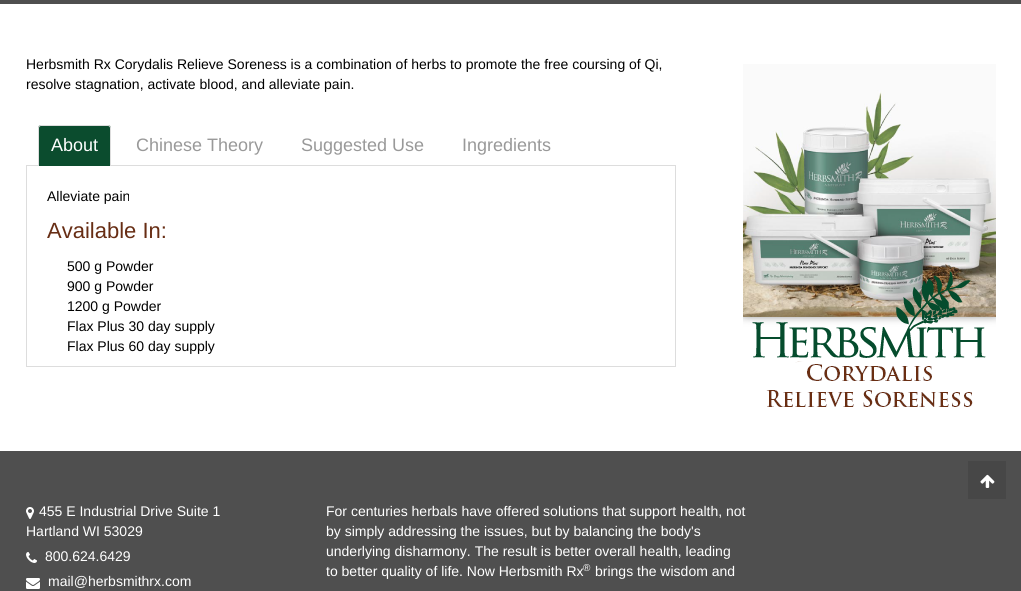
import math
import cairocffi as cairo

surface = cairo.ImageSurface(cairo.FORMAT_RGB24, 1021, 591)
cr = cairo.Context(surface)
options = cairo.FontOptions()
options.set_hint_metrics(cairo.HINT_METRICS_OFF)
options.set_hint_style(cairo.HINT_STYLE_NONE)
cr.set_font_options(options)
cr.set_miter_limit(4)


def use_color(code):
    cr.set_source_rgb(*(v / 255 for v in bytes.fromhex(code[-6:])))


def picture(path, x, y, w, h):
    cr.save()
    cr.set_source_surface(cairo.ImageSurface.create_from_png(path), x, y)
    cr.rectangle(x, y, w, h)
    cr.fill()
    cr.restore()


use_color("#4f4f4f")
cr.paint()
use_color("#ffffff")
cr.rectangle(0, 4, 1021, 447)
cr.fill()
cr.select_font_face("Liberation Sans")
cr.set_font_size(14)
use_color("#000000")
cr.move_to(26, 69)
cr.show_text("Herbsmith Rx Corydalis Relieve Soreness is a combination of herbs to promote the free coursing of Qi,")
cr.move_to(26, 89)
cr.show_text("resolve stagnation, activate blood, and alleviate pain.")
cr.rectangle(26.5, 165.5, 649, 201)
use_color("#dddddd")
cr.set_line_width(1)
cr.stroke()
use_color("#0b4c2e")
cr.new_path()
cr.move_to(41, 125)
cr.line_to(108, 125)
cr.curve_to(109.5, 125, 111, 126.5, 111, 128)
cr.line_to(111, 166)
cr.line_to(38, 166)
cr.line_to(38, 128)
cr.curve_to(38, 126.5, 39.5, 125, 41, 125)
cr.close_path()
cr.fill()
use_color("#dddddd")
cr.set_fill_rule(cairo.FILL_RULE_EVEN_ODD)
cr.new_path()
cr.move_to(41, 125)
cr.line_to(108, 125)
cr.curve_to(110, 125, 111, 126, 111, 128)
cr.line_to(111, 166)
cr.line_to(38, 166)
cr.line_to(38, 128)
cr.curve_to(38, 126, 39, 125, 41, 125)
cr.close_path()
cr.move_to(41, 126)
cr.line_to(108, 126)
cr.curve_to(109, 126, 110, 127, 110, 128)
cr.line_to(110, 166)
cr.line_to(39, 166)
cr.line_to(39, 128)
cr.curve_to(39, 127, 40, 126, 41, 126)
cr.close_path()
cr.fill()
cr.set_font_size(18)
use_color("#ffffff")
cr.move_to(51, 151)
cr.show_text("About")
use_color("#999999")
cr.move_to(136, 151)
cr.show_text("Chinese Theory")
cr.move_to(301, 151)
cr.show_text("Suggested Use")
cr.move_to(462, 151)
cr.show_text("Ingredients")
cr.set_font_size(14)
use_color("#000000")
cr.move_to(47, 201)
cr.show_text("Alleviate pain")
cr.set_font_size(22)
use_color("#672d14")
cr.move_to(47, 238)
cr.show_text("Available In:")
cr.set_font_size(14)
use_color("#000000")
cr.move_to(67, 271)
cr.show_text("500 g Powder")
cr.move_to(67, 291)
cr.show_text("900 g Powder")
cr.move_to(67, 311)
cr.show_text("1200 g Powder")
cr.move_to(67, 331)
cr.show_text("Flax Plus 30 day supply")
cr.move_to(67, 351)
cr.show_text("Flax Plus 60 day supply")
picture("img1.png", 743, 64, 253, 343)
picture("img2.png", 26, 507, 8, 12)
use_color("#ffffff")
cr.move_to(39, 516)
cr.show_text("455 E Industrial Drive Suite 1")
cr.move_to(26, 536)
cr.show_text("Hartland WI 53029")
picture("img3.png", 26, 552, 11, 11)
cr.move_to(45, 561)
cr.show_text("800.624.6429")
picture("img4.png", 26, 578, 14, 11)
cr.move_to(48, 586)
cr.show_text("mail@herbsmithrx.com")
cr.move_to(326, 516)
cr.show_text("For centuries herbals have offered solutions that support health, not")
cr.move_to(326, 536)
cr.show_text("by simply addressing the issues, but by balancing the body's")
cr.move_to(326, 556)
cr.show_text("underlying disharmony. The result is better overall health, leading")
cr.move_to(326, 576)
cr.show_text("to better quality of life. Now Herbsmith Rx")
cr.set_font_size(10)
cr.move_to(583, 571)
cr.show_text("®")
cr.set_font_size(14)
cr.move_to(595, 576)
cr.show_text("brings the wisdom and")
use_color("#474747")
cr.rectangle(968, 461, 38, 38)
cr.fill()
picture("img5.png", 980, 474, 15, 14)
surface.write_to_png("result.png")
